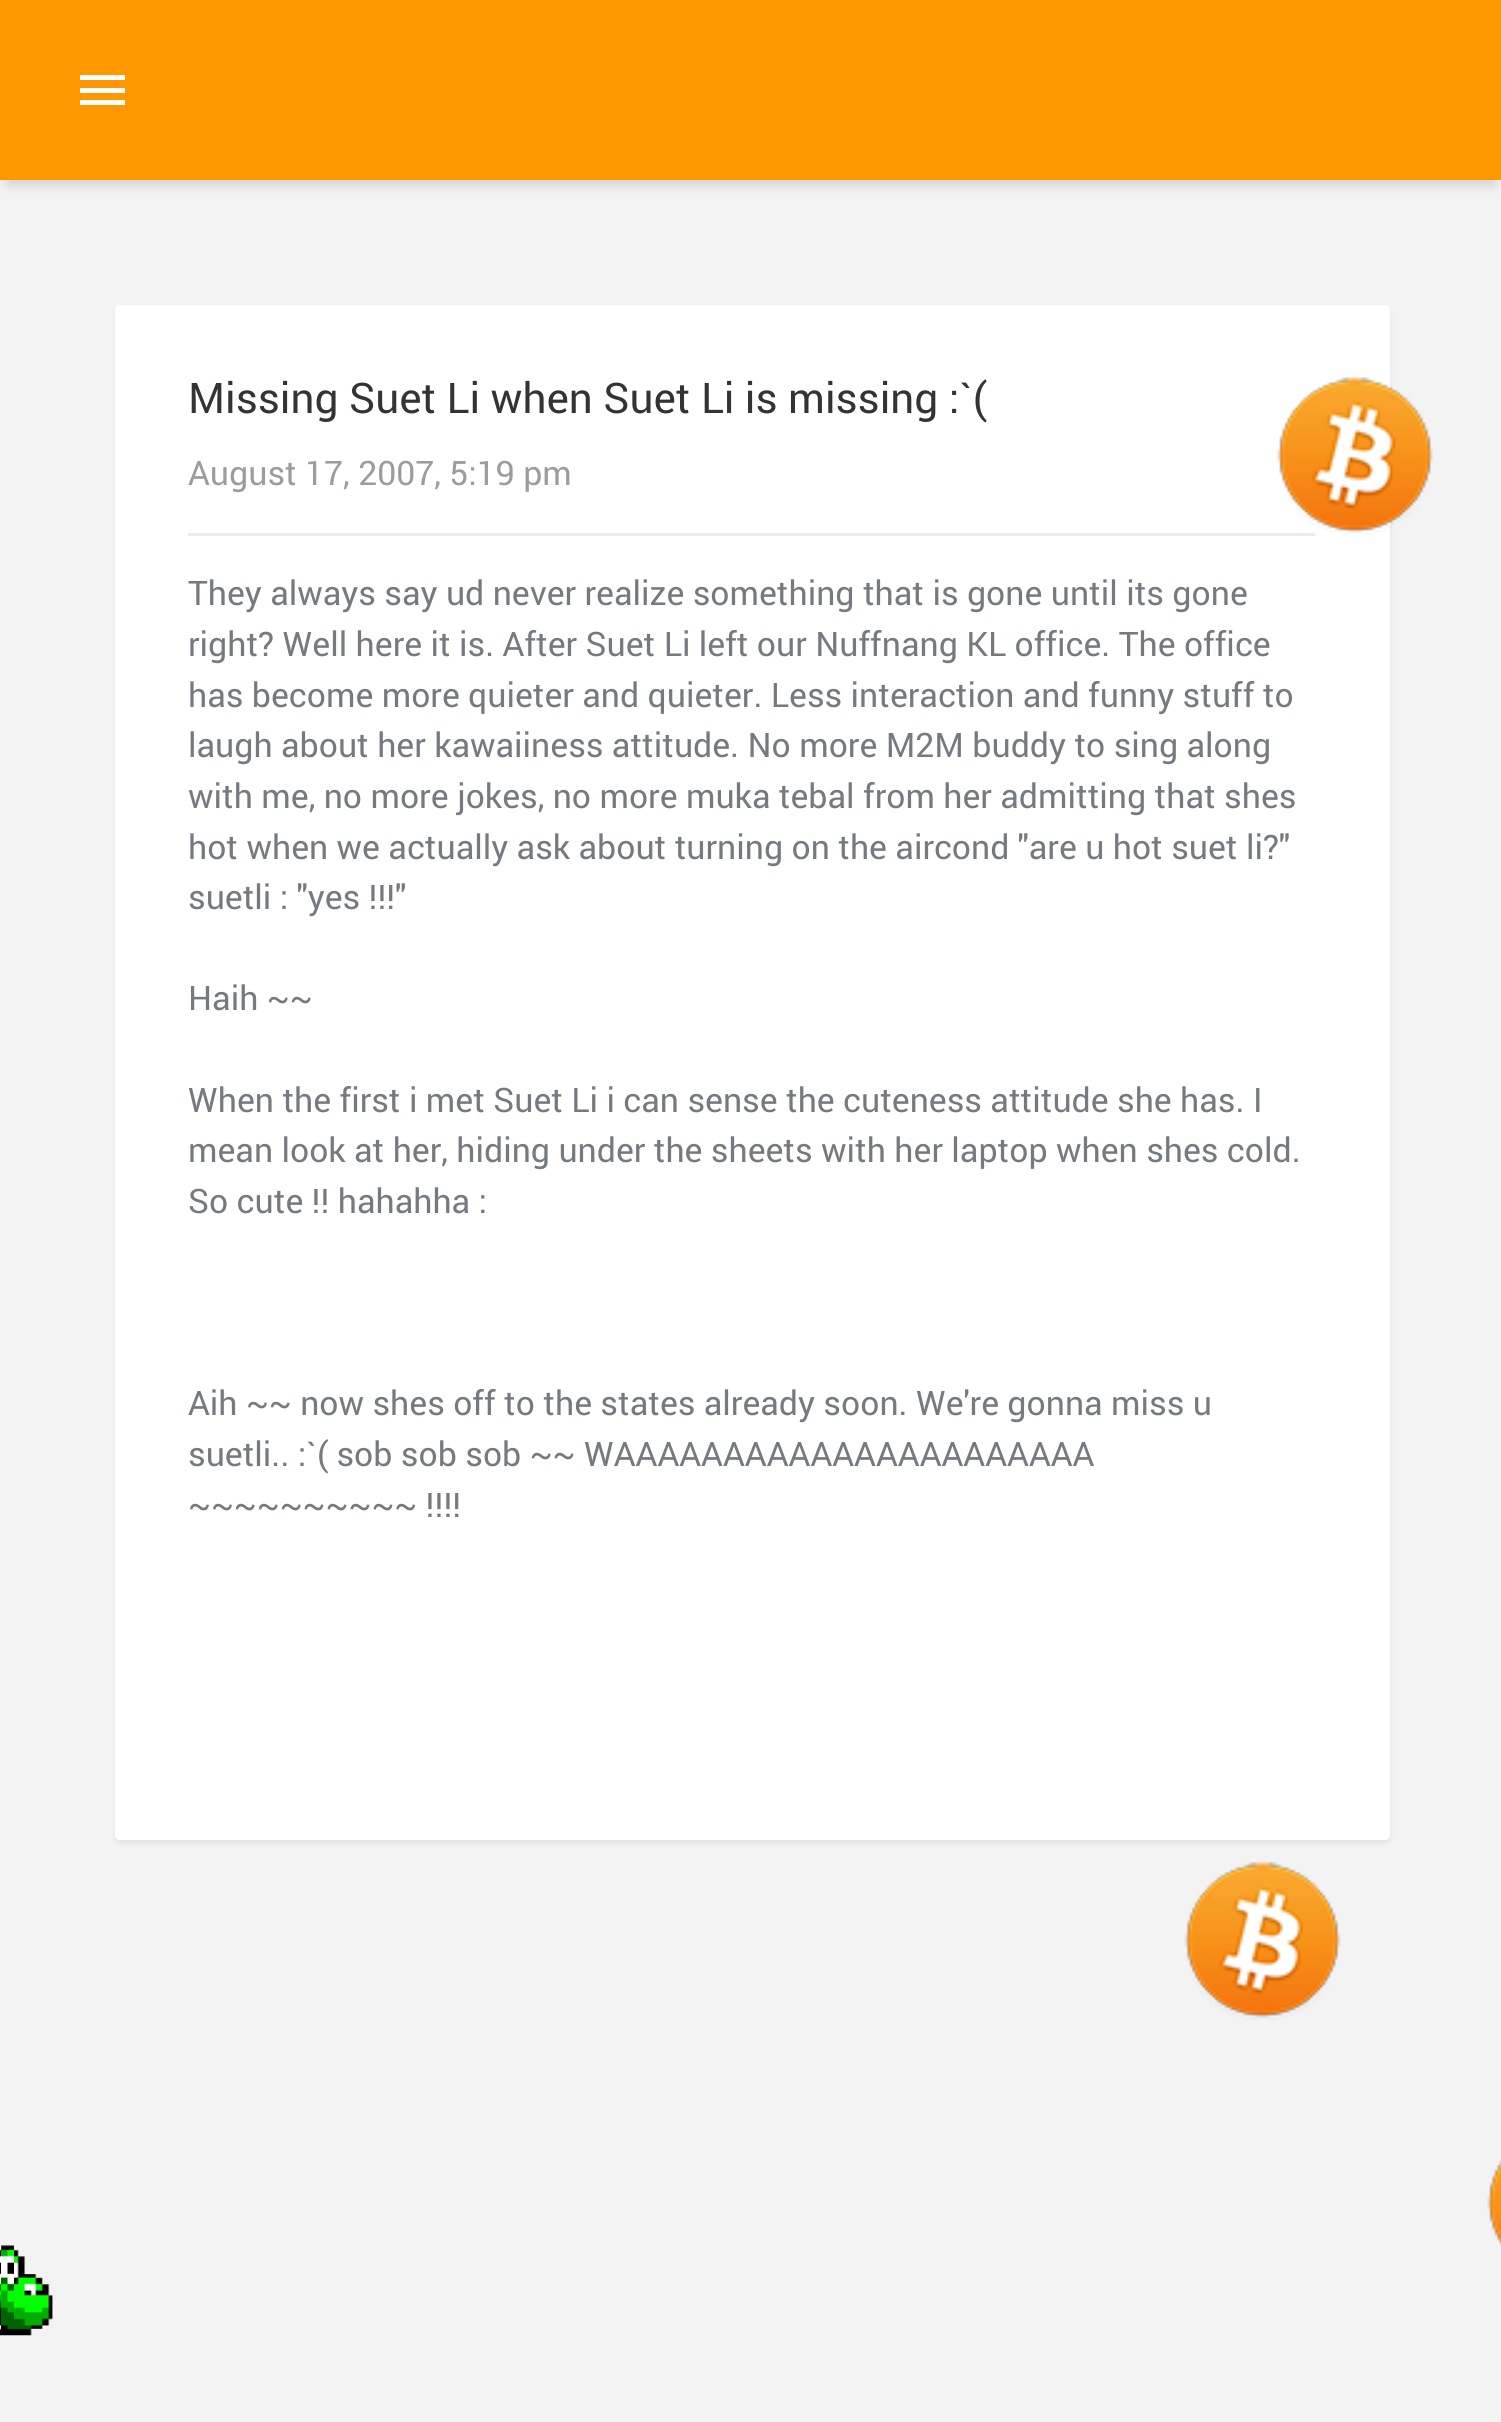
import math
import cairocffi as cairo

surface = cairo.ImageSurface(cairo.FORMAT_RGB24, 1501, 2422)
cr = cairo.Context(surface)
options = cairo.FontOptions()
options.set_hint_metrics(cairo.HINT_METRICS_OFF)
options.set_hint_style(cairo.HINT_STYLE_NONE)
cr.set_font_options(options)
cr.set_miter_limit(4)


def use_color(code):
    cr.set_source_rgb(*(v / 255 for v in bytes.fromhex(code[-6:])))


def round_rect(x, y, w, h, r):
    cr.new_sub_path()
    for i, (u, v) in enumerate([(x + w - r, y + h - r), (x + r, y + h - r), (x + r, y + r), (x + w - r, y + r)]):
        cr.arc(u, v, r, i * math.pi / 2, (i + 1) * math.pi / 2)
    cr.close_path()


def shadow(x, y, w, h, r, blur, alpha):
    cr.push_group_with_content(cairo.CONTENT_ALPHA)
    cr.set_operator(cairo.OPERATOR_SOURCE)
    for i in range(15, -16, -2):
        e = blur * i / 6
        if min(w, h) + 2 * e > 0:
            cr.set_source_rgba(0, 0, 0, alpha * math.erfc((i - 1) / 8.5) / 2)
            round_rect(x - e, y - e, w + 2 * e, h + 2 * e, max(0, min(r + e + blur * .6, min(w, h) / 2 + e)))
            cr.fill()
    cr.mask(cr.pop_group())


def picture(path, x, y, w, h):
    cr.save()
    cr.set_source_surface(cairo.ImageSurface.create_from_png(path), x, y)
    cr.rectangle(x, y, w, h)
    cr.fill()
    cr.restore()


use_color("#f3f3f3")
cr.paint()
use_color("#000000")
shadow(8, 20, 1487, 165, 0, 6, 0.15)
use_color("#ff9800")
cr.rectangle(0, 0, 1501, 180)
cr.fill()
use_color("#ffffff")
cr.rectangle(80, 75, 45, 5)
cr.fill()
cr.rectangle(80, 88, 45, 5)
cr.fill()
cr.rectangle(80, 100, 45, 5)
cr.fill()
use_color("#000000")
shadow(115, 308, 1275, 1535, 5, 2.5, 0.07)
use_color("#ffffff")
round_rect(115, 305, 1275, 1535, 5)
cr.fill()
cr.select_font_face("Roboto")
cr.set_font_size(42.2)
use_color("#333333")
cr.move_to(188, 413)
cr.show_text("Missing Suet Li when Suet Li is missing :`(")
cr.set_font_size(33.75)
use_color("#9c9c9c")
cr.move_to(188, 485)
cr.show_text("August 17, 2007, 5:19 pm")
use_color("#e9ecef")
cr.rectangle(188, 533, 1127, 3)
cr.fill()
use_color("#747a80")
cr.move_to(188, 605)
cr.show_text("They always say ud never realize something that is gone until its gone")
cr.move_to(188, 656)
cr.show_text("right? Well here it is. After Suet Li left our Nuffnang KL office. The office")
cr.move_to(188, 707)
cr.show_text("has become more quieter and quieter. Less interaction and funny stuff to")
cr.move_to(188, 757)
cr.show_text("laugh about her kawaiiness attitude. No more M2M buddy to sing along")
cr.move_to(188, 808)
cr.show_text("with me, no more jokes, no more muka tebal from her admitting that shes")
cr.move_to(188, 859)
cr.show_text("hot when we actually ask about turning on the aircond \"are u hot suet li?\"")
cr.move_to(188, 909)
cr.show_text("suetli : \"yes !!!\"")
cr.move_to(188, 1010)
cr.show_text("Haih ~~")
cr.move_to(188, 1112)
cr.show_text("When the first i met Suet Li i can sense the cuteness attitude she has. I")
cr.move_to(188, 1162)
cr.show_text("mean look at her, hiding under the sheets with her laptop when shes cold.")
cr.move_to(188, 1213)
cr.show_text("So cute !! hahahha :")
cr.move_to(188, 1415)
cr.show_text("Aih ~~ now shes off to the states already soon. We're gonna miss u")
cr.move_to(188, 1466)
cr.show_text("suetli.. :`( sob sob sob ~~ WAAAAAAAAAAAAAAAAAAAAAA")
cr.move_to(188, 1517)
cr.show_text("~~~~~~~~~~ !!!!")
picture("img1.png", 1277, 376, 156, 159)
picture("img2.png", 1184, 1861, 157, 159)
picture("img3.png", 1487, 2160, 14, 86)
picture("img4.png", 0, 2245, 53, 91)
surface.write_to_png("result.png")
